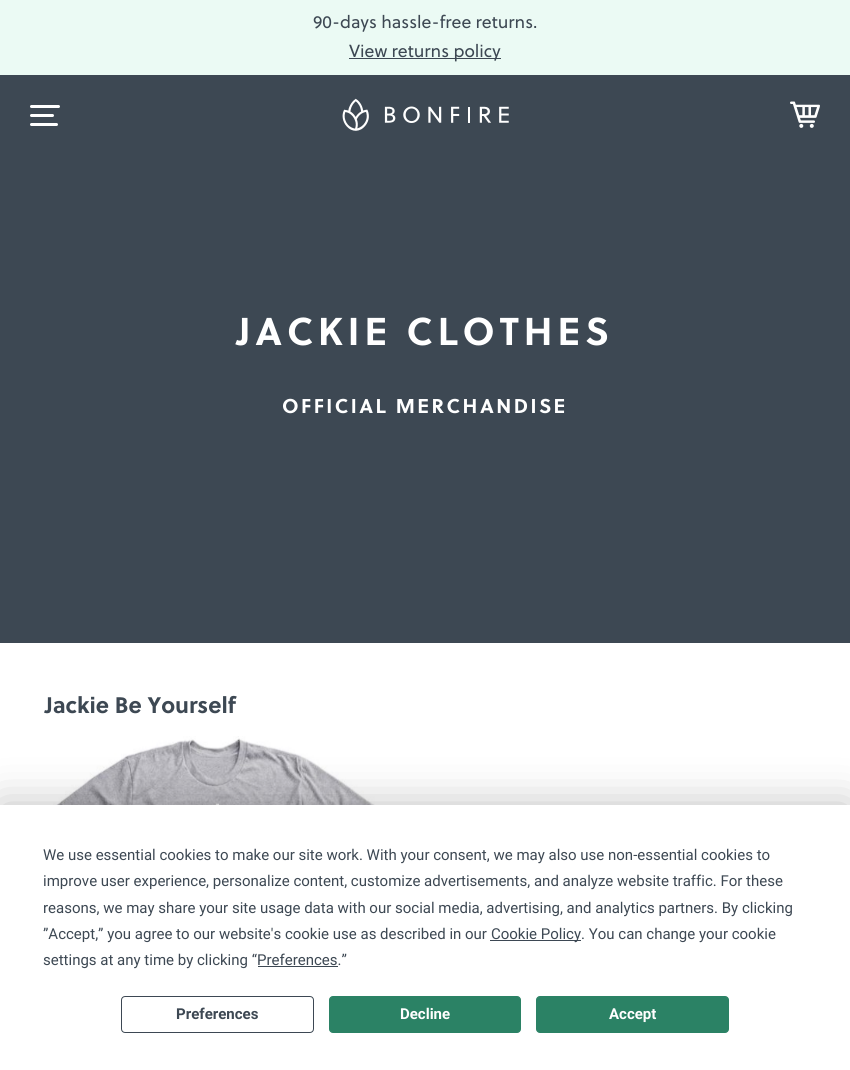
import math
import cairocffi as cairo

surface = cairo.ImageSurface(cairo.FORMAT_RGB24, 850, 1070)
cr = cairo.Context(surface)
options = cairo.FontOptions()
options.set_hint_metrics(cairo.HINT_METRICS_OFF)
options.set_hint_style(cairo.HINT_STYLE_NONE)
cr.set_font_options(options)
cr.set_miter_limit(4)


def use_color(code):
    cr.set_source_rgb(*(v / 255 for v in bytes.fromhex(code[-6:])))


def spaced_text(x, y, s, letter, word):
    cr.move_to(x, y)
    for ch in s:
        cr.show_text(ch)
        cr.rel_move_to(letter + word * (ch == ' '), 0)


def round_rect(x, y, w, h, r):
    cr.new_sub_path()
    for i, (u, v) in enumerate([(x + w - r, y + h - r), (x + r, y + h - r), (x + r, y + r), (x + w - r, y + r)]):
        cr.arc(u, v, r, i * math.pi / 2, (i + 1) * math.pi / 2)
    cr.close_path()


def shadow(x, y, w, h, r, blur, alpha):
    cr.push_group_with_content(cairo.CONTENT_ALPHA)
    cr.set_operator(cairo.OPERATOR_SOURCE)
    for i in range(15, -16, -2):
        e = blur * i / 6
        if min(w, h) + 2 * e > 0:
            cr.set_source_rgba(0, 0, 0, alpha * math.erfc((i - 1) / 8.5) / 2)
            round_rect(x - e, y - e, w + 2 * e, h + 2 * e, max(0, min(r + e + blur * .6, min(w, h) / 2 + e)))
            cr.fill()
    cr.mask(cr.pop_group())


def picture(path, x, y, w, h):
    cr.save()
    cr.set_source_surface(cairo.ImageSurface.create_from_png(path), x, y)
    cr.rectangle(x, y, w, h)
    cr.fill()
    cr.restore()


use_color("#ffffff")
cr.paint()
use_color("#ebfaf4")
cr.rectangle(0, 0, 850, 75)
cr.fill()
cr.select_font_face("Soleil")
cr.set_font_size(17.5)
use_color("#3d4853")
cr.move_to(313, 28)
cr.show_text("90-days hassle-free returns.")
cr.rectangle(349, 58, 152, 1)
cr.fill()
cr.move_to(349, 57)
cr.show_text("View returns policy")
cr.rectangle(0, 75, 850, 568)
cr.fill()
use_color("#ffffff")
round_rect(30, 105, 30, 3, 1.5)
cr.fill()
round_rect(30, 114, 24, 3, 1.5)
cr.fill()
round_rect(30, 123, 28, 3, 1.5)
cr.fill()
picture("img1.png", 342, 98, 167, 33)
picture("img2.png", 790, 101, 30, 27)
cr.select_font_face("Soleil", cairo.FONT_SLANT_NORMAL, cairo.FONT_WEIGHT_BOLD)
cr.set_font_size(38.75)
spaced_text(237, 345, "JACKIE CLOTHES", 5, 0)
cr.set_font_size(20)
spaced_text(282, 413, "OFFICIAL MERCHANDISE", 2.5, 0)
cr.set_font_size(22.5)
use_color("#3d4853")
cr.move_to(45, 713)
cr.show_text("Jackie Be Yourself")
picture("img3.png", 53, 736, 322, 69)
use_color("#000000")
shadow(0, 805, 850, 265, 0, 22, 0.25)
use_color("#ffffff")
cr.rectangle(0, 805, 850, 265)
cr.fill()
cr.select_font_face("Roboto")
cr.set_font_size(15)
use_color("#3d4853")
cr.move_to(43, 860)
cr.show_text("We use essential cookies to make our site work. With your consent, we may also use non-essential cookies to")
cr.move_to(43, 886)
cr.show_text("improve user experience, personalize content, customize advertisements, and analyze website traffic. For these")
cr.move_to(43, 913)
cr.show_text("reasons, we may share your site usage data with our social media, advertising, and analytics partners. By clicking")
cr.move_to(43, 939)
cr.show_text("”Accept,” you agree to our website's cookie use as described in our")
cr.rectangle(490, 940, 91, 1)
cr.fill()
cr.move_to(491, 939)
cr.show_text("Cookie Policy. You can change your cookie")
cr.move_to(43, 965)
cr.show_text("settings at any time by clicking “Preferences.”")
cr.rectangle(258, 966, 80, 1)
cr.fill()
round_rect(121.5, 996.5, 192, 36, 3.5)
cr.set_line_width(1)
cr.stroke()
cr.select_font_face("Roboto", cairo.FONT_SLANT_NORMAL, cairo.FONT_WEIGHT_BOLD)
cr.move_to(176, 1019)
cr.show_text("Preferences")
use_color("#2b8265")
round_rect(329.5, 996.5, 191, 36, 3.5)
cr.fill_preserve()
cr.stroke()
use_color("#ffffff")
cr.move_to(400, 1019)
cr.show_text("Decline")
use_color("#2b8265")
round_rect(536.5, 996.5, 192, 36, 3.5)
cr.fill_preserve()
cr.stroke()
use_color("#ffffff")
cr.move_to(609, 1019)
cr.show_text("Accept")
surface.write_to_png("result.png")
